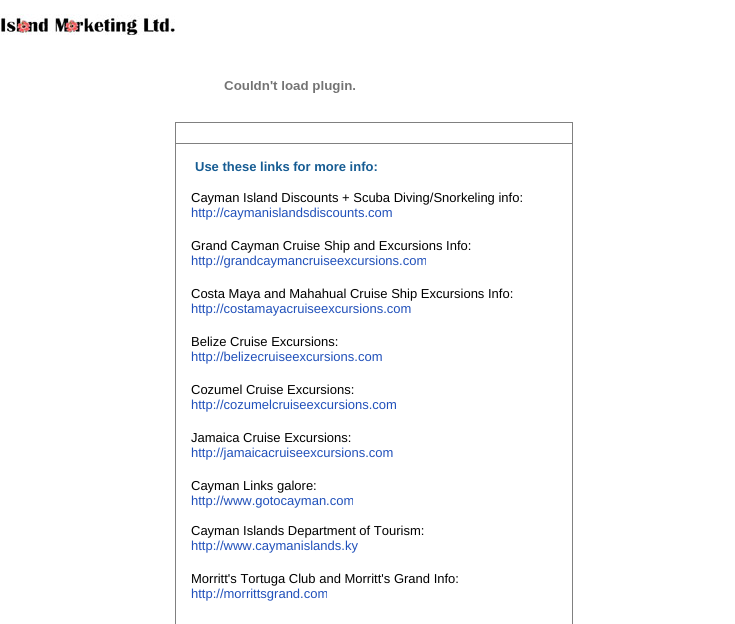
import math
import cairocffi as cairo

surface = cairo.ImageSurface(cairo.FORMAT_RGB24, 735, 624)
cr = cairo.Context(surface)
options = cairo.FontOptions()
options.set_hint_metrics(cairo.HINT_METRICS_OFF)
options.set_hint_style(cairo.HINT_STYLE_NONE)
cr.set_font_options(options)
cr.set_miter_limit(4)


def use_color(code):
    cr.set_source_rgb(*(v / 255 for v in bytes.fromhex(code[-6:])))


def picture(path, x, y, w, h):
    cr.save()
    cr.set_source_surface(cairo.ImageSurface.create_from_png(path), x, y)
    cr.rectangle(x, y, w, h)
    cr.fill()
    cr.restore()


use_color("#ffffff")
cr.paint()
picture("img1.png", 0, 14, 175, 21)
picture("img2.png", 224, 81, 131, 12)
use_color("#808080")
cr.rectangle(175, 122, 398, 1)
cr.fill()
cr.rectangle(572, 122, 1, 502)
cr.fill()
cr.rectangle(175, 122, 1, 502)
cr.fill()
cr.rectangle(175, 143, 398, 1)
cr.fill()
cr.select_font_face("Liberation Sans", cairo.FONT_SLANT_NORMAL, cairo.FONT_WEIGHT_BOLD)
cr.set_font_size(13)
use_color("#165c93")
cr.move_to(195, 171)
cr.show_text("Use these links for more info:")
cr.select_font_face("Liberation Sans")
use_color("#000000")
cr.move_to(191, 202)
cr.show_text("Cayman Island Discounts + Scuba Diving/Snorkeling info:")
use_color("#2050ba")
cr.move_to(191, 217)
cr.show_text("http://caymanislandsdiscounts.com")
use_color("#000000")
cr.move_to(191, 250)
cr.show_text("Grand Cayman Cruise Ship and Excursions Info:")
use_color("#2050ba")
cr.move_to(191, 265)
cr.show_text("http://grandcaymancruiseexcursions.com")
use_color("#000000")
cr.move_to(191, 298)
cr.show_text("Costa Maya and Mahahual Cruise Ship Excursions Info:")
use_color("#2050ba")
cr.move_to(191, 313)
cr.show_text("http://costamayacruiseexcursions.com")
use_color("#000000")
cr.move_to(191, 346)
cr.show_text("Belize Cruise Excursions:")
use_color("#2050ba")
cr.move_to(191, 361)
cr.show_text("http://belizecruiseexcursions.com")
use_color("#000000")
cr.move_to(191, 394)
cr.show_text("Cozumel Cruise Excursions:")
use_color("#2050ba")
cr.move_to(191, 409)
cr.show_text("http://cozumelcruiseexcursions.com")
use_color("#000000")
cr.move_to(191, 442)
cr.show_text("Jamaica Cruise Excursions:")
use_color("#2050ba")
cr.move_to(191, 457)
cr.show_text("http://jamaicacruiseexcursions.com")
use_color("#000000")
cr.move_to(191, 490)
cr.show_text("Cayman Links galore:")
use_color("#2050ba")
cr.move_to(191, 505)
cr.show_text("http://www.gotocayman.com")
use_color("#000000")
cr.move_to(191, 535)
cr.show_text("Cayman Islands Department of Tourism:")
use_color("#2050ba")
cr.move_to(191, 550)
cr.show_text("http://www.caymanislands.ky")
use_color("#000000")
cr.move_to(191, 583)
cr.show_text("Morritt's Tortuga Club and Morritt's Grand Info:")
use_color("#2050ba")
cr.move_to(191, 598)
cr.show_text("http://morrittsgrand.com")
surface.write_to_png("result.png")
